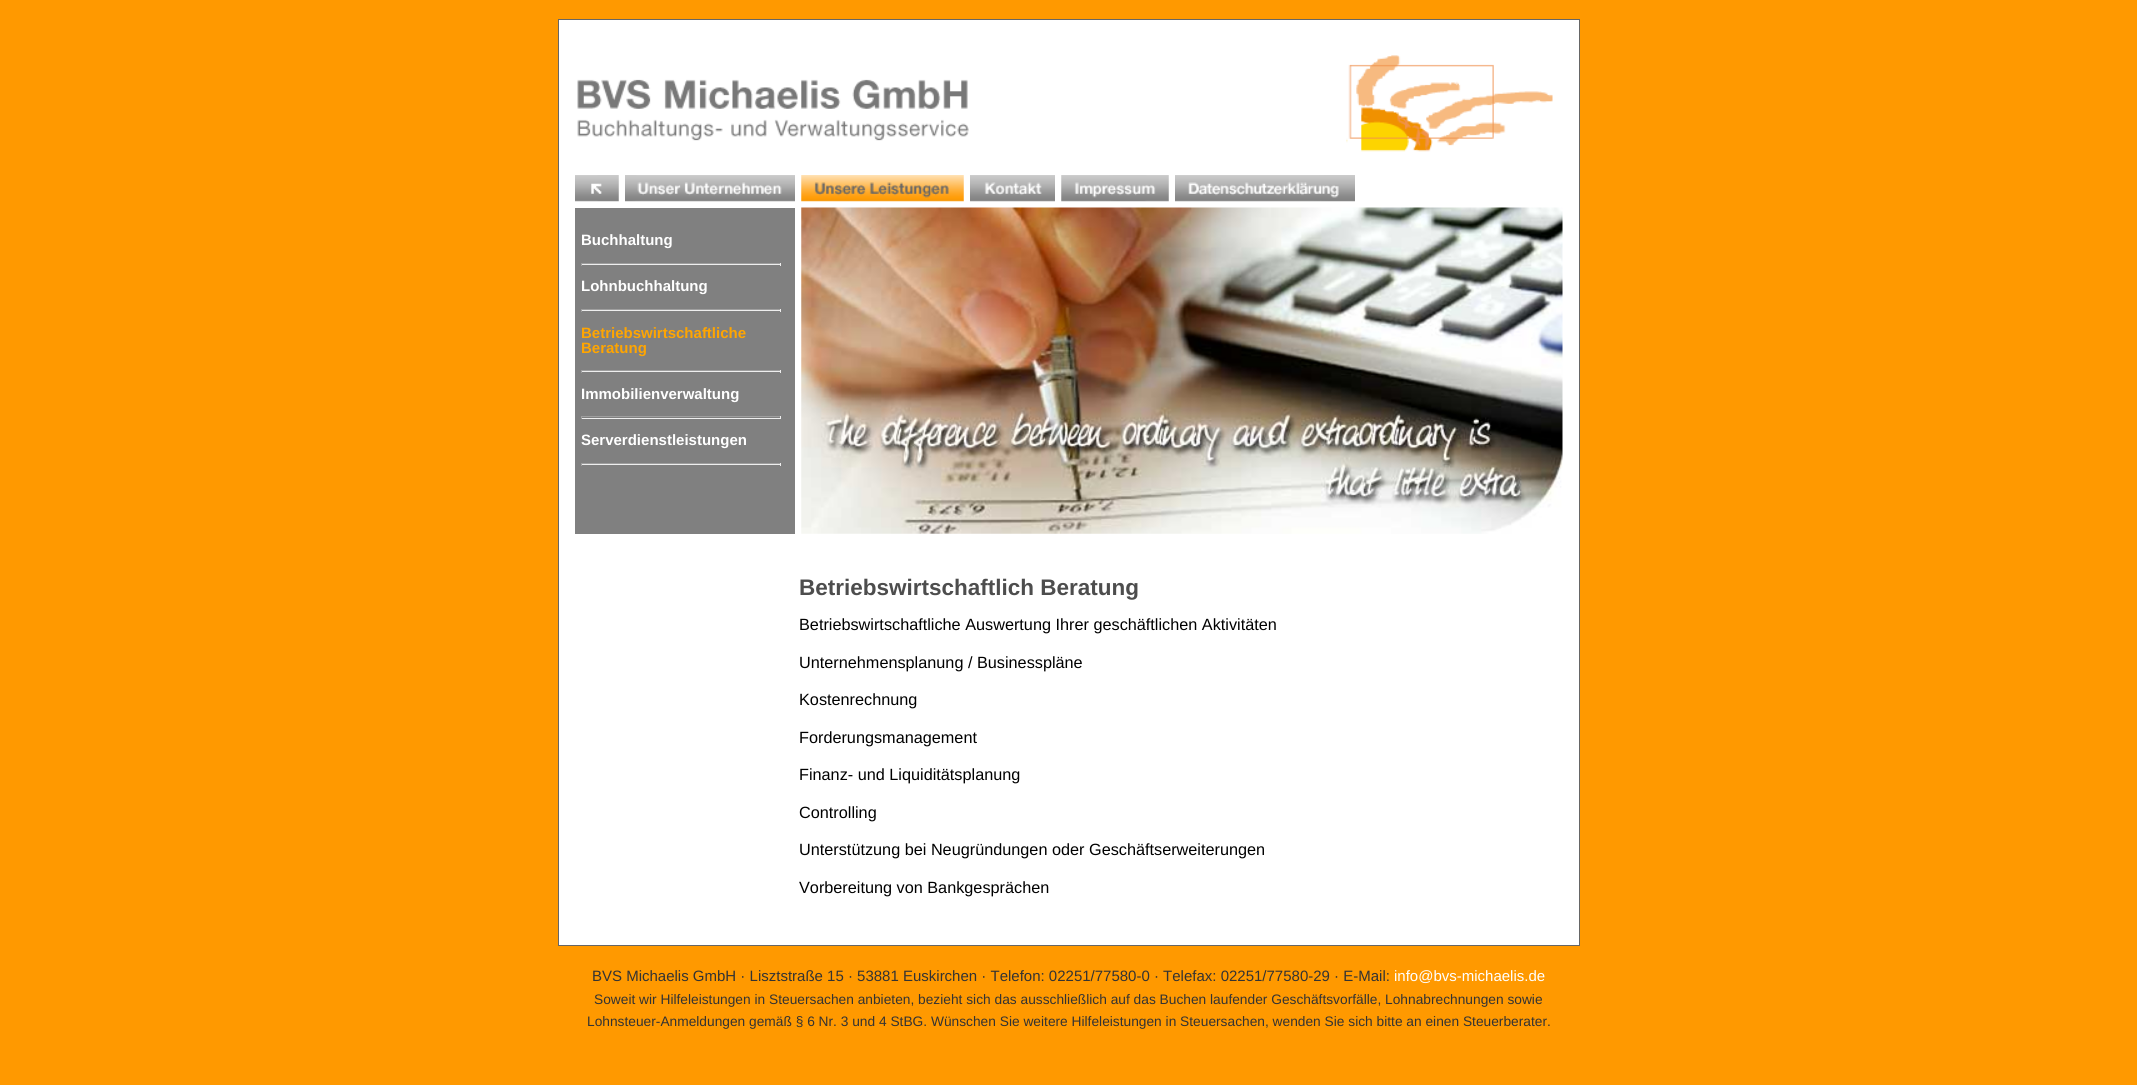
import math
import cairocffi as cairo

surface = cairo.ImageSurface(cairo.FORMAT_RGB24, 2137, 1085)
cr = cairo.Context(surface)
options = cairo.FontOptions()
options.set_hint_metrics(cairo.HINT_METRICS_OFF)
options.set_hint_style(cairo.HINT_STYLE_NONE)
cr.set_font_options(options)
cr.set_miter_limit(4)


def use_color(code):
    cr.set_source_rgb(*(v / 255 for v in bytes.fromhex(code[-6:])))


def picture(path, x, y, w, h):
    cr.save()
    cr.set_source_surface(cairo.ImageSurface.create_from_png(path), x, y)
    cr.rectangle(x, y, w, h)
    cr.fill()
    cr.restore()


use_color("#ff9900")
cr.paint()
use_color("#666666")
cr.rectangle(558, 19, 1022, 927)
cr.fill()
use_color("#ffffff")
cr.rectangle(559, 20, 1020, 925)
cr.fill()
picture("img1.png", 577, 55, 976, 97)
picture("img2.png", 575, 175, 44, 27)
picture("img3.png", 625, 175, 170, 27)
picture("img4.png", 801, 175, 163, 27)
picture("img5.png", 970, 175, 85, 27)
picture("img6.png", 1061, 175, 108, 27)
picture("img7.png", 1175, 175, 180, 27)
use_color("#808080")
cr.rectangle(575, 208, 220, 326)
cr.fill()
cr.select_font_face("Liberation Sans", cairo.FONT_SLANT_NORMAL, cairo.FONT_WEIGHT_BOLD)
cr.set_font_size(15)
use_color("#ffffff")
cr.move_to(581, 245)
cr.show_text("Buchhaltung")
use_color("#9f9f9f")
cr.rectangle(581, 263, 200, 1)
cr.fill()
use_color("#eeeeee")
cr.rectangle(780, 263, 1, 3)
cr.fill()
cr.rectangle(581, 264, 200, 1)
cr.fill()
use_color("#9f9f9f")
cr.rectangle(581, 263, 1, 3)
cr.fill()
use_color("#ffffff")
cr.move_to(581, 291)
cr.show_text("Lohnbuchhaltung")
use_color("#9f9f9f")
cr.rectangle(581, 309, 200, 1)
cr.fill()
use_color("#eeeeee")
cr.rectangle(780, 309, 1, 3)
cr.fill()
cr.rectangle(581, 310, 200, 1)
cr.fill()
use_color("#9f9f9f")
cr.rectangle(581, 309, 1, 3)
cr.fill()
use_color("#ffa500")
cr.move_to(581, 338)
cr.show_text("Betriebswirtschaftliche")
cr.move_to(581, 353)
cr.show_text("Beratung")
use_color("#9f9f9f")
cr.rectangle(581, 370, 200, 1)
cr.fill()
use_color("#eeeeee")
cr.rectangle(780, 370, 1, 3)
cr.fill()
cr.rectangle(581, 371, 200, 1)
cr.fill()
use_color("#9f9f9f")
cr.rectangle(581, 370, 1, 3)
cr.fill()
use_color("#ffffff")
cr.move_to(581, 399)
cr.show_text("Immobilienverwaltung")
use_color("#9f9f9f")
cr.rectangle(581, 416, 200, 1)
cr.fill()
use_color("#eeeeee")
cr.rectangle(780, 416, 1, 3)
cr.fill()
cr.rectangle(581, 418, 200, 1)
cr.fill()
use_color("#9f9f9f")
cr.rectangle(581, 416, 1, 3)
cr.fill()
use_color("#ffffff")
cr.move_to(581, 445)
cr.show_text("Serverdienstleistungen")
use_color("#9f9f9f")
cr.rectangle(581, 463, 200, 1)
cr.fill()
use_color("#eeeeee")
cr.rectangle(780, 463, 1, 3)
cr.fill()
cr.rectangle(581, 464, 200, 1)
cr.fill()
use_color("#9f9f9f")
cr.rectangle(581, 463, 1, 3)
cr.fill()
picture("img8.png", 801, 207, 762, 327)
cr.set_font_size(22.5)
use_color("#4d4d4d")
cr.move_to(799, 595)
cr.show_text("Betriebswirtschaftlich Beratung")
cr.select_font_face("Liberation Sans")
cr.set_font_size(16.25)
use_color("#000000")
cr.move_to(799, 630)
cr.show_text("Betriebswirtschaftliche Auswertung Ihrer geschäftlichen Aktivitäten")
cr.move_to(799, 668)
cr.show_text("Unternehmensplanung / Businesspläne")
cr.move_to(799, 705)
cr.show_text("Kostenrechnung")
cr.move_to(799, 743)
cr.show_text("Forderungsmanagement")
cr.move_to(799, 780)
cr.show_text("Finanz- und Liquiditätsplanung")
cr.move_to(799, 818)
cr.show_text("Controlling")
cr.move_to(799, 855)
cr.show_text("Unterstützung bei Neugründungen oder Geschäftserweiterungen")
cr.move_to(799, 893)
cr.show_text("Vorbereitung von Bankgesprächen")
cr.set_font_size(15)
use_color("#333333")
cr.move_to(592, 981)
cr.show_text("BVS Michaelis GmbH · Lisztstraße 15 · 53881 Euskirchen · Telefon: 02251/77580-0 · Telefax: 02251/77580-29 · E-Mail:")
use_color("#ffffff")
cr.move_to(1394, 981)
cr.show_text("info@bvs-michaelis.de")
cr.set_font_size(13.75)
use_color("#333333")
cr.move_to(594, 1004)
cr.show_text("Soweit wir Hilfeleistungen in Steuersachen anbieten, bezieht sich das ausschließlich auf das Buchen laufender Geschäftsvorfälle, Lohnabrechnungen sowie")
cr.move_to(587, 1026)
cr.show_text("Lohnsteuer-Anmeldungen gemäß § 6 Nr. 3 und 4 StBG. Wünschen Sie weitere Hilfeleistungen in Steuersachen, wenden Sie sich bitte an einen Steuerberater.")
surface.write_to_png("result.png")
